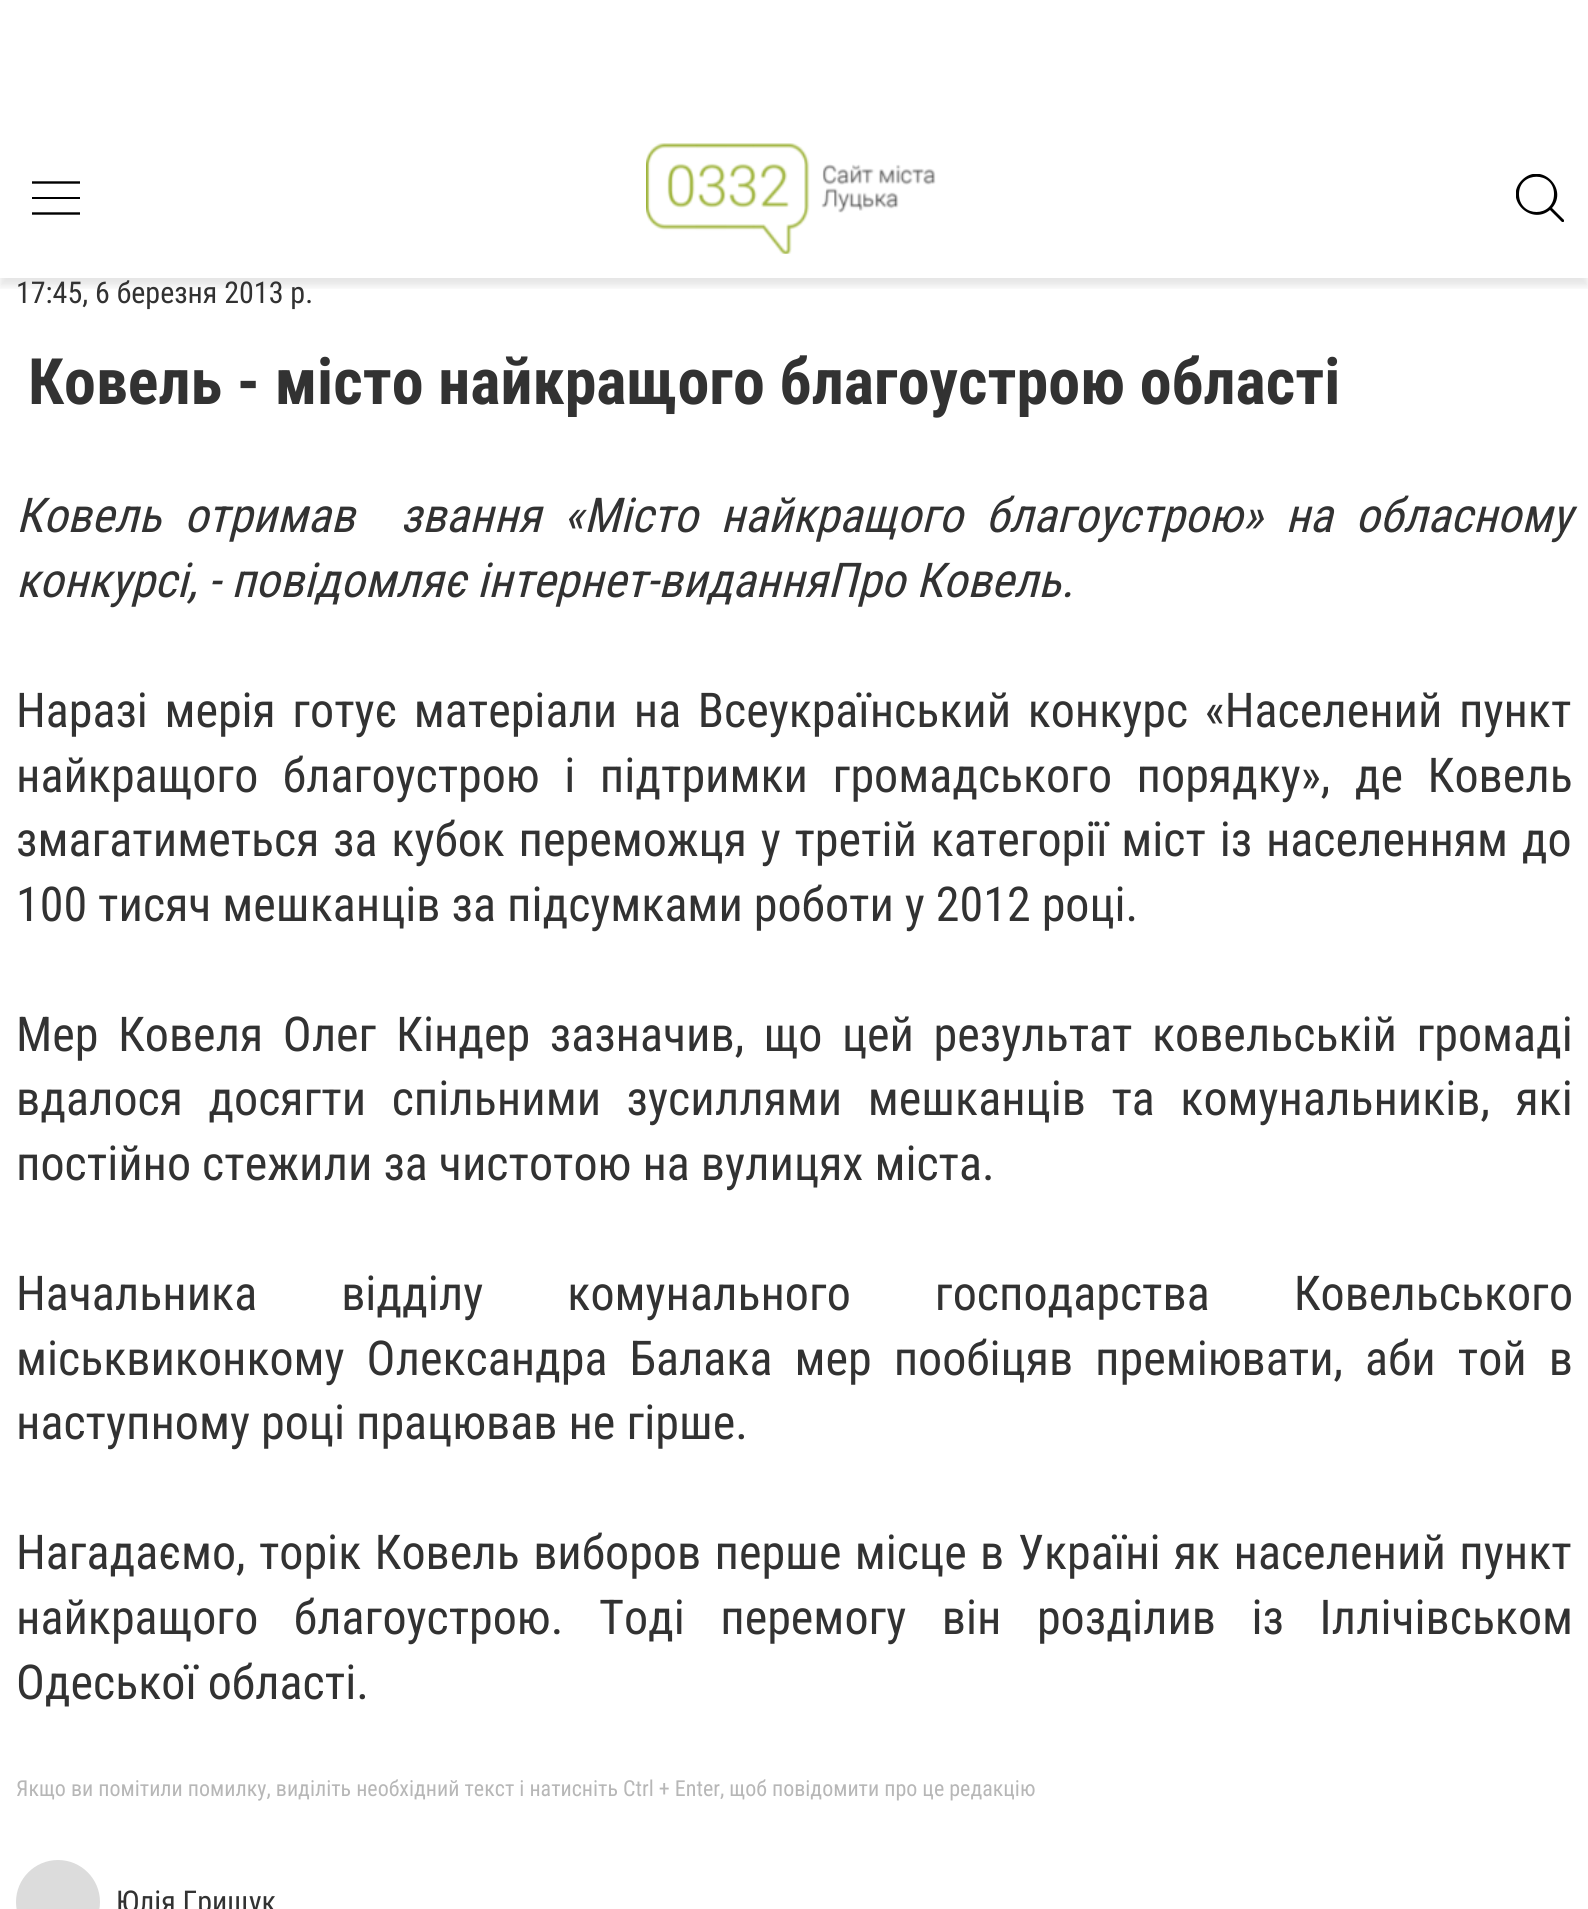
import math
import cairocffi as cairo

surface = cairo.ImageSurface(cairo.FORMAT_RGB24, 1588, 1909)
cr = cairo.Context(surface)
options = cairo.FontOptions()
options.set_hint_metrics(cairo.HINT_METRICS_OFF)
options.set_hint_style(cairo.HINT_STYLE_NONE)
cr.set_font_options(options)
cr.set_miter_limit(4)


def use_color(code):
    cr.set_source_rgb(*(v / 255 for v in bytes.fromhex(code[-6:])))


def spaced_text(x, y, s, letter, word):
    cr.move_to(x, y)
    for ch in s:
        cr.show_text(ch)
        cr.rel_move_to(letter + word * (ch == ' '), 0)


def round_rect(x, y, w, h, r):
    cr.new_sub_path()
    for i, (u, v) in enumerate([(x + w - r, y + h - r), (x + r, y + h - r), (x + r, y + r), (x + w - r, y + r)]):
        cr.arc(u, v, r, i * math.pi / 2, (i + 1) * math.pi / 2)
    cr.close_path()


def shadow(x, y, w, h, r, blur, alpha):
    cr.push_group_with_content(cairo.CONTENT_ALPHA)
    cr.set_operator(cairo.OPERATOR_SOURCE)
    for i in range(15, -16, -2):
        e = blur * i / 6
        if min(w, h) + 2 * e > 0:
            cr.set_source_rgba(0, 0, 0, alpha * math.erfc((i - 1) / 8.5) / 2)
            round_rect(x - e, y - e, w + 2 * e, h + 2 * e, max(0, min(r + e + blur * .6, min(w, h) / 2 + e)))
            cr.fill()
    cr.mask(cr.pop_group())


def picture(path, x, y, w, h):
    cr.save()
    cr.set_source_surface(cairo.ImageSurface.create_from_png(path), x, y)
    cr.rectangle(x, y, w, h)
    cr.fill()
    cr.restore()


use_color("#ffffff")
cr.paint()
cr.save()
cr.rectangle(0, 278, 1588, 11)
cr.clip()
use_color("#000000")
shadow(0, 120, 1588, 166, 0, 4, 0.1)
cr.restore()
cr.new_path()
cr.move_to(32, 182.5)
cr.line_to(80, 182.5)
use_color("#000000")
cr.set_line_width(2.4)
cr.stroke()
cr.rectangle(32, 197, 48, 2)
cr.fill()
cr.new_path()
cr.move_to(32, 213.5)
cr.line_to(80, 213.5)
cr.stroke()
picture("img1.png", 646, 143, 290, 111)
cr.save()
cr.rectangle(1516, 174, 48, 48)
cr.clip()
cr.new_path()
cr.move_to(1564, 220)
cr.line_to(1552, 208)
cr.curve_to(1569, 189, 1541, 161, 1522, 180)
cr.curve_to(1503, 199, 1531, 226, 1550, 210)
cr.line_to(1562, 222)
cr.curve_to(1563, 223, 1565, 221, 1564, 220)
cr.close_path()
cr.move_to(1519, 194)
cr.curve_to(1519, 171, 1554, 171, 1554, 194)
cr.curve_to(1554, 218, 1519, 218, 1519, 194)
cr.close_path()
cr.fill()
cr.restore()
cr.select_font_face("Roboto Condensed")
cr.set_font_size(30)
use_color("#323232")
cr.move_to(16, 303)
cr.show_text("17:45, 6 березня 2013 р.")
cr.select_font_face("Roboto Condensed", cairo.FONT_SLANT_NORMAL, cairo.FONT_WEIGHT_BOLD)
cr.set_font_size(64)
cr.move_to(28, 404)
cr.show_text("Ковель - місто найкращого благоустрою області")
cr.select_font_face("Roboto Condensed", cairo.FONT_SLANT_ITALIC)
cr.set_font_size(48)
spaced_text(16, 532, "Ковель отримав  звання «Місто найкращого благоустрою» на обласному", 0, 11.75)
cr.move_to(16, 597)
cr.show_text("конкурсі, - повідомляє інтернет-виданняПро Ковель.")
cr.select_font_face("Roboto Condensed")
spaced_text(16, 727, "Наразі мерія готує матеріали на Всеукраїнський конкурс «Населений пункт", 0, 5.5)
spaced_text(16, 792, "найкращого благоустрою і підтримки громадського порядку», де Ковель", 0, 13.5)
spaced_text(16, 856, "змагатиметься за кубок переможця у третій категорії міст із населенням до", 0, 2.75)
cr.move_to(16, 921)
cr.show_text("100 тисяч мешканців за підсумками роботи у 2012 році.")
spaced_text(16, 1051, "Мер Ковеля Олег Кіндер зазначив, що цей результат ковельській громаді", 0, 8.5)
spaced_text(16, 1115, "вдалося досягти спільними зусиллями мешканців та комунальників, які", 0, 14.5)
cr.move_to(16, 1180)
cr.show_text("постійно стежили за чистотою на вулицях міста.")
spaced_text(16, 1310, "Начальника відділу комунального господарства Ковельського", 0, 73)
spaced_text(16, 1375, "міськвиконкому Олександра Балака мер пообіцяв преміювати, аби той в", 0, 11)
cr.move_to(16, 1439)
cr.show_text("наступному році працював не гірше.")
spaced_text(16, 1569, "Нагадаємо, торік Ковель виборов перше місце в Україні як населений пункт", 0, 2.4)
spaced_text(16, 1634, "найкращого благоустрою. Тоді перемогу він розділив із Іллічівськом", 0, 24.5)
cr.move_to(16, 1699)
cr.show_text("Одеської області.")
cr.set_font_size(22)
use_color("#b7b7b7")
cr.move_to(16, 1796)
cr.show_text("Якщо ви помітили помилку, виділіть необхідний текст і натисніть Ctrl + Enter, щоб повідомити про це редакцію")
use_color("#dcdcdc")
cr.new_path()
cr.arc(58, 1902, 42, 0, 2 * math.pi)
cr.fill()
cr.set_font_size(30)
use_color("#323232")
cr.move_to(116, 1912)
cr.show_text("Юлія Грищук")
surface.write_to_png("result.png")
